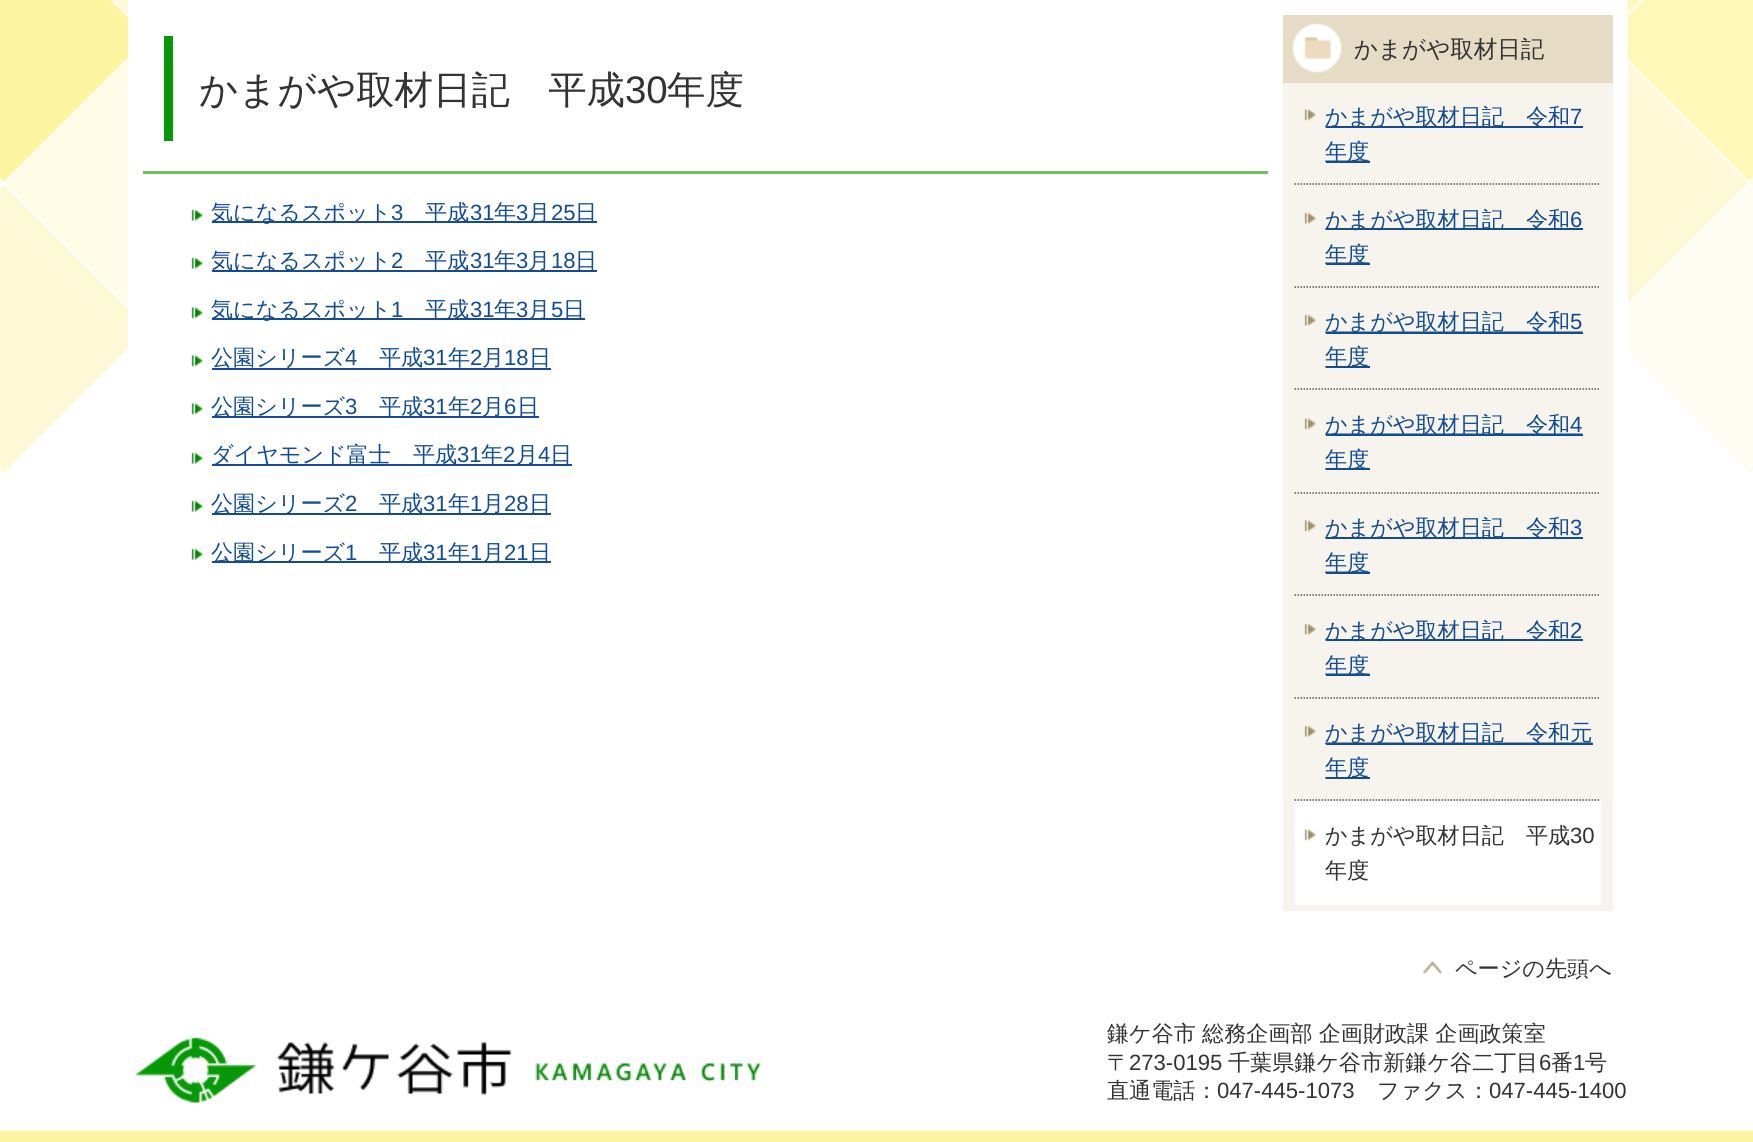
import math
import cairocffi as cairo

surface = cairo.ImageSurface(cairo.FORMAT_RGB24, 1753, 1142)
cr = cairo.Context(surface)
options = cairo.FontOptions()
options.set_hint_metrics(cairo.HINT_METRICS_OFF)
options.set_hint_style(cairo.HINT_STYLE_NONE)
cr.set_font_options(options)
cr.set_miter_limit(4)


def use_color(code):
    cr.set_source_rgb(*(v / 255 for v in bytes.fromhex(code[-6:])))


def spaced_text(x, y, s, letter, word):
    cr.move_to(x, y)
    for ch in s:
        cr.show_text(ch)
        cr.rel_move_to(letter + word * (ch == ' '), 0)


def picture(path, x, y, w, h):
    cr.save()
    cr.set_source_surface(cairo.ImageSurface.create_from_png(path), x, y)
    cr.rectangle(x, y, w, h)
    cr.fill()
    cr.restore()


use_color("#ffffff")
cr.paint()
picture("img1.png", 0, 0, 1753, 473)
use_color("#ffffff")
cr.rectangle(128, 0, 1500, 473)
cr.fill()
use_color("#70c261")
cr.rectangle(143, 171, 1125, 3)
cr.fill()
use_color("#079807")
cr.rectangle(164, 36, 9, 105)
cr.fill()
cr.select_font_face("WenQuanYi Zen Hei Medium")
cr.set_font_size(38.4)
use_color("#333333")
cr.move_to(199, 103)
cr.show_text("かまがや取材日記　平成")
cr.select_font_face("Liberation Sans")
cr.move_to(625, 103)
cr.show_text("30")
cr.select_font_face("WenQuanYi Zen Hei Medium")
cr.move_to(667, 103)
cr.show_text("年度")
picture("img2.png", 191, 209, 12, 12)
use_color("#134c92")
cr.rectangle(212, 221, 385, 2)
cr.fill()
cr.set_font_size(22.1)
cr.move_to(211, 220)
cr.show_text("気になるスポット")
cr.select_font_face("Liberation Sans")
cr.move_to(391, 220)
cr.show_text("3")
cr.select_font_face("WenQuanYi Zen Hei Medium")
cr.move_to(425, 220)
cr.show_text("平成")
cr.select_font_face("Liberation Sans")
cr.move_to(470, 220)
cr.show_text("31")
cr.select_font_face("WenQuanYi Zen Hei Medium")
cr.move_to(494, 220)
cr.show_text("年")
cr.select_font_face("Liberation Sans")
cr.move_to(516, 220)
cr.show_text("3")
cr.select_font_face("WenQuanYi Zen Hei Medium")
cr.move_to(528, 220)
cr.show_text("月")
cr.select_font_face("Liberation Sans")
cr.move_to(551, 220)
cr.show_text("25")
cr.select_font_face("WenQuanYi Zen Hei Medium")
cr.move_to(575, 220)
cr.show_text("日")
picture("img2.png", 191, 257, 12, 12)
cr.rectangle(212, 270, 385, 2)
cr.fill()
cr.move_to(211, 268)
cr.show_text("気になるスポット")
cr.select_font_face("Liberation Sans")
cr.move_to(391, 268)
cr.show_text("2")
cr.select_font_face("WenQuanYi Zen Hei Medium")
cr.move_to(425, 268)
cr.show_text("平成")
cr.select_font_face("Liberation Sans")
cr.move_to(470, 268)
cr.show_text("31")
cr.select_font_face("WenQuanYi Zen Hei Medium")
cr.move_to(494, 268)
cr.show_text("年")
cr.select_font_face("Liberation Sans")
cr.move_to(516, 268)
cr.show_text("3")
cr.select_font_face("WenQuanYi Zen Hei Medium")
cr.move_to(528, 268)
cr.show_text("月")
cr.select_font_face("Liberation Sans")
cr.move_to(551, 268)
cr.show_text("18")
cr.select_font_face("WenQuanYi Zen Hei Medium")
cr.move_to(575, 268)
cr.show_text("日")
picture("img3.png", 191, 307, 12, 12)
cr.rectangle(212, 318, 373, 2)
cr.fill()
cr.move_to(211, 317)
cr.show_text("気になるスポット")
cr.select_font_face("Liberation Sans")
cr.move_to(391, 317)
cr.show_text("1")
cr.select_font_face("WenQuanYi Zen Hei Medium")
cr.move_to(425, 317)
cr.show_text("平成")
cr.select_font_face("Liberation Sans")
cr.move_to(470, 317)
cr.show_text("31")
cr.select_font_face("WenQuanYi Zen Hei Medium")
cr.move_to(494, 317)
cr.show_text("年")
cr.select_font_face("Liberation Sans")
cr.move_to(516, 317)
cr.show_text("3")
cr.select_font_face("WenQuanYi Zen Hei Medium")
cr.move_to(528, 317)
cr.show_text("月")
cr.select_font_face("Liberation Sans")
cr.move_to(551, 317)
cr.show_text("5")
cr.select_font_face("WenQuanYi Zen Hei Medium")
cr.move_to(563, 317)
cr.show_text("日")
picture("img3.png", 191, 355, 12, 12)
cr.rectangle(212, 368, 339, 2)
cr.fill()
cr.move_to(211, 365)
cr.show_text("公園シリーズ")
cr.select_font_face("Liberation Sans")
cr.move_to(345, 365)
cr.show_text("4")
cr.select_font_face("WenQuanYi Zen Hei Medium")
cr.move_to(379, 365)
cr.show_text("平成")
cr.select_font_face("Liberation Sans")
cr.move_to(423, 365)
cr.show_text("31")
cr.select_font_face("WenQuanYi Zen Hei Medium")
cr.move_to(448, 365)
cr.show_text("年")
cr.select_font_face("Liberation Sans")
cr.move_to(470, 365)
cr.show_text("2")
cr.select_font_face("WenQuanYi Zen Hei Medium")
cr.move_to(482, 365)
cr.show_text("月")
cr.select_font_face("Liberation Sans")
cr.move_to(504, 365)
cr.show_text("18")
cr.select_font_face("WenQuanYi Zen Hei Medium")
cr.move_to(529, 365)
cr.show_text("日")
picture("img3.png", 191, 403, 12, 12)
cr.rectangle(212, 416, 327, 2)
cr.fill()
cr.move_to(211, 414)
cr.show_text("公園シリーズ")
cr.select_font_face("Liberation Sans")
cr.move_to(345, 414)
cr.show_text("3")
cr.select_font_face("WenQuanYi Zen Hei Medium")
cr.move_to(379, 414)
cr.show_text("平成")
cr.select_font_face("Liberation Sans")
cr.move_to(423, 414)
cr.show_text("31")
cr.select_font_face("WenQuanYi Zen Hei Medium")
cr.move_to(448, 414)
cr.show_text("年")
cr.select_font_face("Liberation Sans")
cr.move_to(470, 414)
cr.show_text("2")
cr.select_font_face("WenQuanYi Zen Hei Medium")
cr.move_to(482, 414)
cr.show_text("月")
cr.select_font_face("Liberation Sans")
cr.move_to(504, 414)
cr.show_text("6")
cr.select_font_face("WenQuanYi Zen Hei Medium")
cr.move_to(517, 414)
cr.show_text("日")
picture("img2.png", 191, 452, 12, 12)
cr.rectangle(212, 464, 360, 2)
cr.fill()
cr.move_to(211, 462)
cr.show_text("ダイヤモンド富士　平成")
cr.select_font_face("Liberation Sans")
cr.move_to(457, 462)
cr.show_text("31")
cr.select_font_face("WenQuanYi Zen Hei Medium")
cr.move_to(481, 462)
cr.show_text("年")
cr.select_font_face("Liberation Sans")
cr.move_to(503, 462)
cr.show_text("2")
cr.select_font_face("WenQuanYi Zen Hei Medium")
cr.move_to(516, 462)
cr.show_text("月")
cr.select_font_face("Liberation Sans")
cr.move_to(538, 462)
cr.show_text("4")
cr.select_font_face("WenQuanYi Zen Hei Medium")
cr.move_to(550, 462)
cr.show_text("日")
picture("img2.png", 191, 500, 12, 12)
cr.rectangle(212, 513, 339, 2)
cr.fill()
cr.move_to(211, 511)
cr.show_text("公園シリーズ")
cr.select_font_face("Liberation Sans")
cr.move_to(345, 511)
cr.show_text("2")
cr.select_font_face("WenQuanYi Zen Hei Medium")
cr.move_to(379, 511)
cr.show_text("平成")
cr.select_font_face("Liberation Sans")
cr.move_to(423, 511)
cr.show_text("31")
cr.select_font_face("WenQuanYi Zen Hei Medium")
cr.move_to(448, 511)
cr.show_text("年")
cr.select_font_face("Liberation Sans")
cr.move_to(470, 511)
cr.show_text("1")
cr.select_font_face("WenQuanYi Zen Hei Medium")
cr.move_to(482, 511)
cr.show_text("月")
cr.select_font_face("Liberation Sans")
cr.move_to(504, 511)
cr.show_text("28")
cr.select_font_face("WenQuanYi Zen Hei Medium")
cr.move_to(529, 511)
cr.show_text("日")
picture("img2.png", 191, 548, 12, 12)
cr.rectangle(212, 561, 339, 2)
cr.fill()
cr.move_to(211, 560)
cr.show_text("公園シリーズ")
cr.select_font_face("Liberation Sans")
cr.move_to(345, 560)
cr.show_text("1")
cr.select_font_face("WenQuanYi Zen Hei Medium")
cr.move_to(379, 560)
cr.show_text("平成")
cr.select_font_face("Liberation Sans")
cr.move_to(423, 560)
cr.show_text("31")
cr.select_font_face("WenQuanYi Zen Hei Medium")
cr.move_to(448, 560)
cr.show_text("年")
cr.select_font_face("Liberation Sans")
cr.move_to(470, 560)
cr.show_text("1")
cr.select_font_face("WenQuanYi Zen Hei Medium")
cr.move_to(482, 560)
cr.show_text("月")
cr.select_font_face("Liberation Sans")
cr.move_to(504, 560)
cr.show_text("21")
cr.select_font_face("WenQuanYi Zen Hei Medium")
cr.move_to(529, 560)
cr.show_text("日")
use_color("#f7f4ed")
cr.rectangle(1283, 83, 330, 828)
cr.fill()
use_color("#e6dcc6")
cr.rectangle(1283, 15, 330, 68)
cr.fill()
picture("img4.png", 1292, 23, 50, 50)
cr.set_font_size(23.5)
use_color("#333333")
cr.move_to(1354, 57)
cr.show_text("かまがや取材日記")
picture("img5.png", 1304, 109, 66, 53)
use_color("#134c92")
cr.rectangle(1326, 126, 257, 2)
cr.fill()
cr.set_font_size(22.1)
cr.move_to(1325, 124)
cr.show_text("かまがや取材日記　令和")
cr.select_font_face("Liberation Sans")
cr.move_to(1570, 124)
cr.show_text("7")
cr.rectangle(1326, 161, 44, 2)
cr.fill()
cr.select_font_face("WenQuanYi Zen Hei Medium")
cr.move_to(1325, 159)
cr.show_text("年度")
cr.new_path()
cr.move_to(1294.5, 184)
cr.line_to(1600.5, 184)
use_color("#555555")
cr.set_line_width(1.5)
cr.set_dash([1.5, 1.5])
cr.stroke()
picture("img6.png", 1304, 212, 66, 52)
use_color("#134c92")
cr.rectangle(1326, 228, 257, 2)
cr.fill()
cr.move_to(1325, 227)
cr.show_text("かまがや取材日記　令和")
cr.select_font_face("Liberation Sans")
cr.move_to(1570, 227)
cr.show_text("6")
cr.rectangle(1326, 263, 44, 2)
cr.fill()
cr.select_font_face("WenQuanYi Zen Hei Medium")
cr.move_to(1325, 262)
cr.show_text("年度")
cr.new_path()
cr.move_to(1294.5, 287)
cr.line_to(1600.5, 287)
use_color("#555555")
cr.stroke()
picture("img7.png", 1304, 314, 279, 54)
use_color("#134c92")
cr.rectangle(1326, 332, 257, 2)
cr.fill()
cr.move_to(1325, 329)
cr.show_text("かまがや取材日記　令和")
cr.select_font_face("Liberation Sans")
cr.move_to(1570, 329)
cr.show_text("5")
cr.rectangle(1326, 366, 44, 2)
cr.fill()
cr.select_font_face("WenQuanYi Zen Hei Medium")
cr.move_to(1325, 364)
cr.show_text("年度")
cr.new_path()
cr.move_to(1294.5, 389)
cr.line_to(1600.5, 389)
use_color("#555555")
cr.stroke()
picture("img8.png", 1304, 418, 279, 52)
use_color("#134c92")
cr.rectangle(1326, 434, 257, 2)
cr.fill()
cr.move_to(1325, 432)
cr.show_text("かまがや取材日記　令和")
cr.select_font_face("Liberation Sans")
cr.move_to(1570, 432)
cr.show_text("4")
cr.rectangle(1326, 468, 44, 2)
cr.fill()
cr.select_font_face("WenQuanYi Zen Hei Medium")
cr.move_to(1325, 467)
cr.show_text("年度")
cr.new_path()
cr.move_to(1294.5, 493)
cr.line_to(1600.5, 493)
use_color("#555555")
cr.stroke()
picture("img5.png", 1304, 520, 66, 53)
use_color("#134c92")
cr.rectangle(1326, 537, 257, 2)
cr.fill()
cr.move_to(1325, 535)
cr.show_text("かまがや取材日記　令和")
cr.select_font_face("Liberation Sans")
cr.move_to(1570, 535)
cr.show_text("3")
cr.rectangle(1326, 572, 44, 2)
cr.fill()
cr.select_font_face("WenQuanYi Zen Hei Medium")
cr.move_to(1325, 570)
cr.show_text("年度")
cr.new_path()
cr.move_to(1294.5, 595)
cr.line_to(1600.5, 595)
use_color("#555555")
cr.stroke()
picture("img6.png", 1304, 623, 66, 52)
use_color("#134c92")
cr.rectangle(1326, 639, 257, 2)
cr.fill()
cr.move_to(1325, 638)
cr.show_text("かまがや取材日記　令和")
cr.select_font_face("Liberation Sans")
cr.move_to(1570, 638)
cr.show_text("2")
cr.rectangle(1326, 674, 44, 2)
cr.fill()
cr.select_font_face("WenQuanYi Zen Hei Medium")
cr.move_to(1325, 673)
cr.show_text("年度")
cr.new_path()
cr.move_to(1294.5, 698)
cr.line_to(1600.5, 698)
use_color("#555555")
cr.stroke()
picture("img9.png", 1304, 725, 289, 54)
use_color("#134c92")
cr.rectangle(1326, 743, 267, 2)
cr.fill()
cr.move_to(1325, 740)
cr.show_text("かまがや取材日記　令和元")
cr.rectangle(1326, 777, 44, 2)
cr.fill()
cr.move_to(1325, 775)
cr.show_text("年度")
cr.new_path()
cr.move_to(1294.5, 800)
cr.line_to(1600.5, 800)
use_color("#555555")
cr.stroke()
use_color("#ffffff")
cr.rectangle(1295, 801, 306, 104)
cr.fill()
picture("img10.png", 1304, 829, 12, 12)
use_color("#333333")
cr.move_to(1325, 843)
cr.show_text("かまがや取材日記　平成")
cr.select_font_face("Liberation Sans")
cr.move_to(1570, 843)
cr.show_text("30")
cr.select_font_face("WenQuanYi Zen Hei Medium")
cr.move_to(1325, 878)
cr.show_text("年度")
picture("img11.png", 1423, 961, 19, 13)
cr.move_to(1455, 976)
cr.show_text("ページの先頭へ")
picture("img12.png", 134, 1037, 627, 66)
spaced_text(1107, 1041, "鎌ケ谷市 総務企画部 企画財政課 企画政策室", 0, -0.5)
cr.move_to(1107, 1070)
cr.show_text("〒")
cr.select_font_face("Liberation Sans")
cr.move_to(1129, 1070)
cr.show_text("273-0195")
cr.select_font_face("WenQuanYi Zen Hei Medium")
cr.move_to(1228, 1070)
cr.show_text("千葉県鎌ケ谷市新鎌ケ谷二丁目")
cr.select_font_face("Liberation Sans")
cr.move_to(1539, 1070)
cr.show_text("6")
cr.select_font_face("WenQuanYi Zen Hei Medium")
cr.move_to(1551, 1070)
cr.show_text("番")
cr.select_font_face("Liberation Sans")
cr.move_to(1573, 1070)
cr.show_text("1")
cr.select_font_face("WenQuanYi Zen Hei Medium")
cr.move_to(1585, 1070)
cr.show_text("号")
cr.move_to(1107, 1098)
cr.show_text("直通電話：")
cr.select_font_face("Liberation Sans")
cr.move_to(1217, 1098)
cr.show_text("047-445-1073")
cr.select_font_face("WenQuanYi Zen Hei Medium")
cr.move_to(1377, 1098)
cr.show_text("ファクス：")
cr.select_font_face("Liberation Sans")
cr.move_to(1489, 1098)
cr.show_text("047-445-1400")
use_color("#fdf4a0")
cr.rectangle(0, 1131, 1753, 11)
cr.fill()
surface.write_to_png("result.png")
